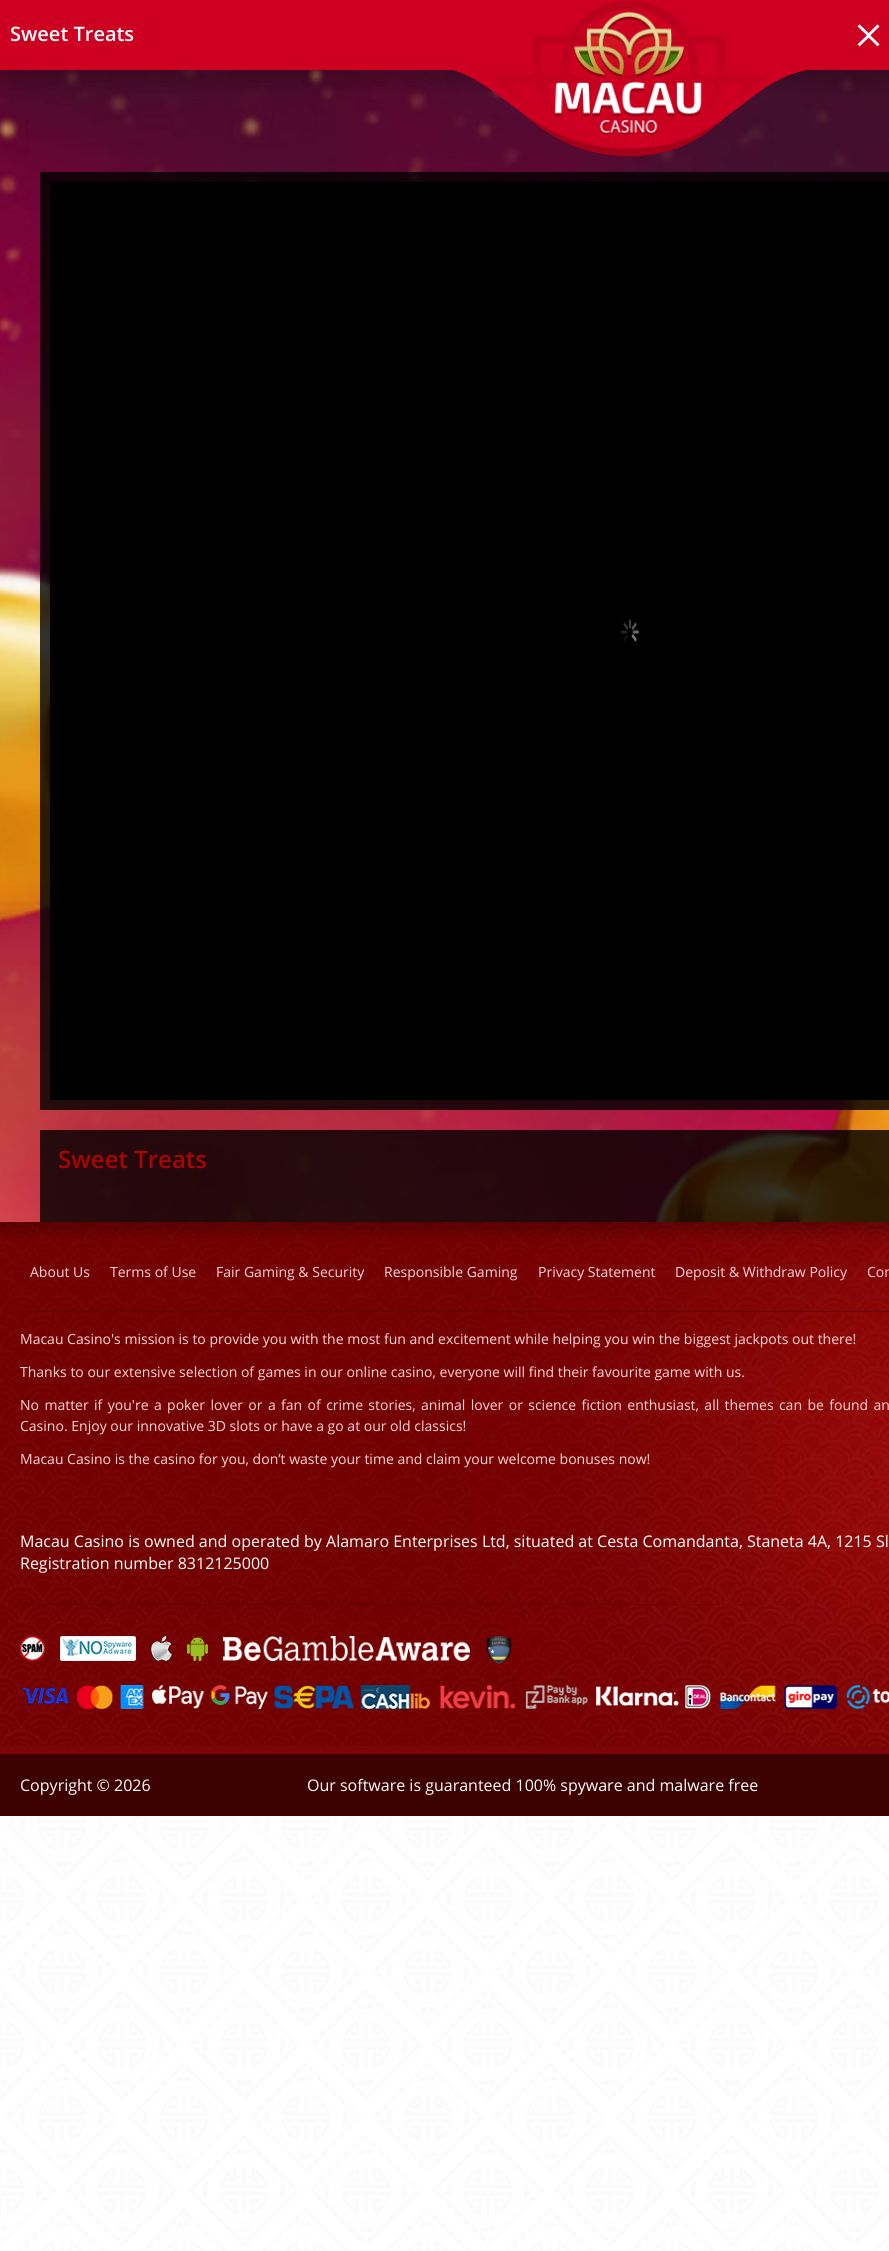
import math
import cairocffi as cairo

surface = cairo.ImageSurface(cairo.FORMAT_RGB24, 889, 2251)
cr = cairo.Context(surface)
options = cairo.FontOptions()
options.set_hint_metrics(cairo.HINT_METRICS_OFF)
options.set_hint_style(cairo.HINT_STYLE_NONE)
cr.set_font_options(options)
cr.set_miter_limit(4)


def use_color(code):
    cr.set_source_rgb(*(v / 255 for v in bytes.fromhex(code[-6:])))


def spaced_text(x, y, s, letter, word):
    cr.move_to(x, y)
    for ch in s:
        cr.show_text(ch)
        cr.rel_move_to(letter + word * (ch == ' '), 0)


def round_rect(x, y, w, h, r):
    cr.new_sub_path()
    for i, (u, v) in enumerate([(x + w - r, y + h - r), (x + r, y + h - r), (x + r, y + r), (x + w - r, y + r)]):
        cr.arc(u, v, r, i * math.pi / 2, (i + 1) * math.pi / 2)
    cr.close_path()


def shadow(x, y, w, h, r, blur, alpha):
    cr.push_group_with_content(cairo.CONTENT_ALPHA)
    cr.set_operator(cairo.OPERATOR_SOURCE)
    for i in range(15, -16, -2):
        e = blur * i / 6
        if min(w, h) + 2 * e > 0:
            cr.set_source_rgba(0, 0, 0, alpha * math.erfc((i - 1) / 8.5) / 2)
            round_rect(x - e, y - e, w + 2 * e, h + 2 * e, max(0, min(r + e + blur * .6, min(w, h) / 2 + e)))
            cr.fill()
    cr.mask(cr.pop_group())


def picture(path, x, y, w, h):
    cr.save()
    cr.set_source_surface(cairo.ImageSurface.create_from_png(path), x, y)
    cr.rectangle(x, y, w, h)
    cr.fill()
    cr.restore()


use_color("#ffffff")
cr.paint()
picture("img1.png", 0, 1816, 889, 435)
picture("img2.png", 0, 70, 889, 1152)
use_color("#000000")
shadow(0, 15, 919, 70, 0, 10, 0.2)
use_color("#cd0021")
cr.rectangle(0, 0, 889, 70)
cr.fill()
picture("img4.png", 453, 70, 356, 87)
picture("img3.png", 491, 0, 277, 141)
cr.select_font_face("Open Sans SemiBold")
cr.set_font_size(20)
use_color("#ffffff")
cr.move_to(10, 41)
cr.show_text("Sweet Treats")
picture("img5.png", 857, 24, 23, 23)
cr.set_source_rgba(0, 0, 0, 0.8)
cr.rectangle(40, 172, 849, 938)
cr.fill()
picture("img6.png", 50, 182, 839, 900)
use_color("#000000")
cr.rectangle(50, 1082, 839, 18)
cr.fill()
cr.set_source_rgba(0, 0, 0, 0.8)
cr.rectangle(40, 1130, 849, 92)
cr.fill()
cr.set_font_size(24)
use_color("#a80602")
cr.move_to(58, 1168)
cr.show_text("Sweet Treats")
use_color("#7b0505")
cr.rectangle(0, 1746, 889, 8)
cr.fill()
picture("img7.png", 0, 1222, 889, 524)
cr.set_source_rgba(0.369, 0.008, 0.008, 0.8)
cr.rectangle(20, 1311, 869, 1)
cr.fill()
cr.select_font_face("Open Sans")
cr.set_font_size(14)
use_color("#ffd3da")
cr.move_to(30, 1277)
cr.show_text("About Us")
cr.move_to(110, 1277)
cr.show_text("Terms of Use")
cr.move_to(216, 1277)
cr.show_text("Fair Gaming & Security")
cr.move_to(384, 1277)
cr.show_text("Responsible Gaming")
cr.move_to(538, 1277)
cr.show_text("Privacy Statement")
cr.move_to(675, 1277)
cr.show_text("Deposit & Withdraw Policy")
cr.move_to(867, 1277)
cr.show_text("Con")
cr.move_to(20, 1344)
cr.show_text("Macau Casino's mission is to provide you with the most fun and excitement while helping you win the biggest jackpots out there!")
cr.move_to(20, 1377)
cr.show_text("Thanks to our extensive selection of games in our online casino, everyone will find their favourite game with us.")
spaced_text(20, 1410, "No matter if you're a poker lover or a fan of crime stories, animal lover or science fiction enthusiast, all themes can be found an", 0, 1.75)
cr.move_to(20, 1431)
cr.show_text("Casino. Enjoy our innovative 3D slots or have a go at our old classics!")
cr.move_to(20, 1464)
cr.show_text("Macau Casino is the casino for you, don’t waste your time and claim your welcome bonuses now!")
cr.set_font_size(16)
use_color("#ffffff")
cr.move_to(20, 1547)
cr.show_text("Macau Casino is owned and operated by Alamaro Enterprises Ltd, situated at Cesta Comandanta, Staneta 4A, 1215 Sl")
cr.move_to(20, 1569)
cr.show_text("Registration number 8312125000")
picture("img8.png", 20, 1636, 25, 25)
picture("img9.png", 60, 1636, 76, 25)
picture("img10.png", 151, 1636, 21, 25)
picture("img11.png", 187, 1636, 21, 25)
picture("img12.png", 223, 1636, 247, 25)
picture("img13.png", 486, 1636, 26, 28)
picture("img14.png", 21, 1685, 868, 24)
use_color("#3c0000")
cr.rectangle(0, 1754, 889, 62)
cr.fill()
use_color("#ffffff")
cr.move_to(20, 1791)
cr.show_text("Copyright © 2026")
cr.move_to(307, 1791)
cr.show_text("Our software is guaranteed 100% spyware and malware free")
surface.write_to_png("result.png")
